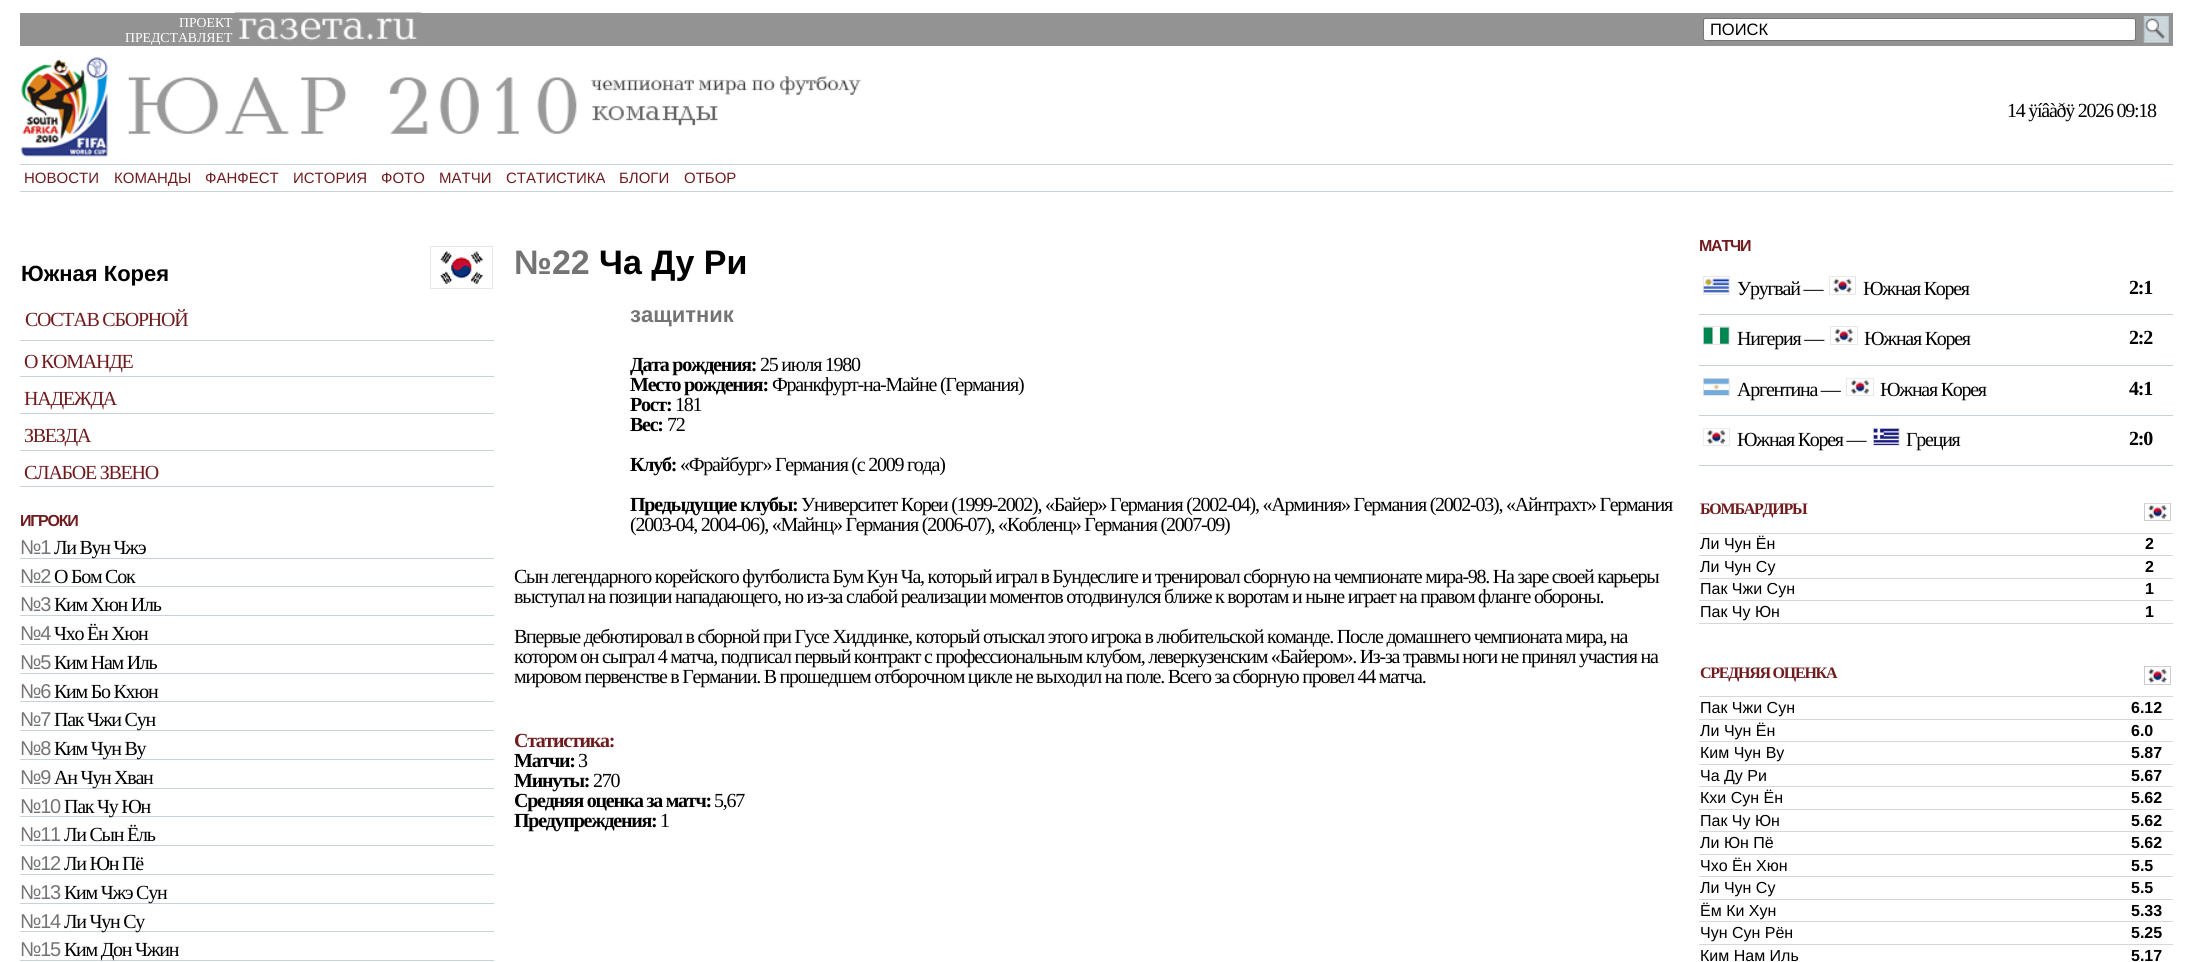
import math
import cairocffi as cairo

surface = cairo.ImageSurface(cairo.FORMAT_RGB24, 2192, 962)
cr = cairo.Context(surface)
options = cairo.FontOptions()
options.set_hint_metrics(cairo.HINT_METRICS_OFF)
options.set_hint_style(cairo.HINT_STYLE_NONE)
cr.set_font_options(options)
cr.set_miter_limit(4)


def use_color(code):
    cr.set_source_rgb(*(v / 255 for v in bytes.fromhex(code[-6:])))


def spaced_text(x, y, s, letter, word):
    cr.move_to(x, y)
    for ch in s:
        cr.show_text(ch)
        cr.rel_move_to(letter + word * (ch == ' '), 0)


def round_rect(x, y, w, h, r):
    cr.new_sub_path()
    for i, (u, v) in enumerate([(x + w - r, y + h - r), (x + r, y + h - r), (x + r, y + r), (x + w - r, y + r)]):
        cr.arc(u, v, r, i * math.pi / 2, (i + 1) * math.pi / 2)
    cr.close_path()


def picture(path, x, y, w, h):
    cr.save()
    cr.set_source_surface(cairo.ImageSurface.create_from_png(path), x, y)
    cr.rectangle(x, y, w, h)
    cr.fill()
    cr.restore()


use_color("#ffffff")
cr.paint()
use_color("#939393")
cr.rectangle(20, 13, 2153, 33)
cr.fill()
cr.select_font_face("Liberation Serif")
cr.set_font_size(13.75)
use_color("#ffffff")
cr.move_to(179, 27)
cr.show_text("ПРОЕКТ")
cr.move_to(125, 42)
cr.show_text("ПРЕДСТАВЛЯЕТ")
picture("img1.png", 235, 12, 187, 29)
round_rect(1703.5, 18.5, 432, 22, 2)
cr.fill_preserve()
use_color("#767676")
cr.set_line_width(1)
cr.stroke()
cr.select_font_face("Liberation Sans")
cr.set_font_size(16.5)
use_color("#000000")
cr.move_to(1710, 35)
cr.show_text("ПОИСК")
picture("img2.png", 2143, 16, 26, 27)
picture("img3.png", 21, 57, 87, 100)
picture("img4.png", 128, 77, 449, 57)
picture("img5.png", 591, 76, 271, 19)
picture("img6.png", 592, 106, 126, 20)
cr.select_font_face("Liberation Serif")
cr.set_font_size(20)
spaced_text(2007, 117, "14 ÿíâàðÿ 2026 09:18", -1.25, 0)
use_color("#c7d3d8")
cr.rectangle(20, 164, 2153, 1)
cr.fill()
cr.rectangle(20, 191, 2153, 1)
cr.fill()
cr.select_font_face("Liberation Sans")
cr.set_font_size(15)
use_color("#701c1f")
cr.move_to(24, 183)
cr.show_text("НОВОСТИ")
cr.move_to(114, 183)
cr.show_text("КОМАНДЫ")
cr.move_to(205, 183)
cr.show_text("ФАНФЕСТ")
cr.move_to(293, 183)
cr.show_text("ИСТОРИЯ")
cr.move_to(381, 183)
cr.show_text("ФОТО")
cr.move_to(439, 183)
cr.show_text("МАТЧИ")
cr.move_to(506, 183)
cr.show_text("СТАТИСТИКА")
cr.move_to(619, 183)
cr.show_text("БЛОГИ")
cr.move_to(684, 183)
cr.show_text("ОТБОР")
use_color("#c7d3d8")
cr.rectangle(20, 340, 474, 1)
cr.fill()
cr.select_font_face("Liberation Sans", cairo.FONT_SLANT_NORMAL, cairo.FONT_WEIGHT_BOLD)
cr.set_font_size(22)
use_color("#000000")
cr.move_to(21, 281)
cr.show_text("Южная Корея")
cr.rectangle(430.5, 246.5, 62, 42)
use_color("#e7e7e7")
cr.stroke()
picture("img7.png", 439, 251, 44, 33)
cr.select_font_face("Liberation Serif")
cr.set_font_size(20)
use_color("#701c1f")
spaced_text(25, 326, "СОСТАВ СБОРНОЙ", -1.25, 0)
use_color("#c7d3d8")
cr.rectangle(20, 376, 474, 1)
cr.fill()
use_color("#701c1f")
spaced_text(24, 368, "О КОМАНДЕ", -1.25, 0)
use_color("#c7d3d8")
cr.rectangle(20, 413, 474, 1)
cr.fill()
use_color("#701c1f")
spaced_text(24, 405, "НАДЕЖДА", -1.25, 0)
use_color("#c7d3d8")
cr.rectangle(20, 450, 474, 1)
cr.fill()
use_color("#701c1f")
spaced_text(24, 442, "ЗВЕЗДА", -1.25, 0)
use_color("#c7d3d8")
cr.rectangle(20, 486, 474, 1)
cr.fill()
use_color("#701c1f")
spaced_text(24, 479, "СЛАБОЕ ЗВЕНО", -1.25, 0)
cr.select_font_face("Liberation Sans", cairo.FONT_SLANT_NORMAL, cairo.FONT_WEIGHT_BOLD)
cr.set_font_size(16)
spaced_text(20, 526, "ИГРОКИ", -1.25, 0)
use_color("#c7d3d8")
cr.rectangle(20, 558, 474, 1)
cr.fill()
cr.select_font_face("Liberation Sans")
cr.set_font_size(20)
use_color("#747474")
spaced_text(20, 554, "№1", -1.25, 0)
cr.select_font_face("Liberation Serif")
use_color("#000000")
spaced_text(54, 554, "Ли Вун Чжэ", -1.25, 0)
use_color("#c7d3d8")
cr.rectangle(20, 586, 474, 1)
cr.fill()
cr.select_font_face("Liberation Sans")
use_color("#747474")
spaced_text(20, 583, "№2", -1.25, 0)
cr.select_font_face("Liberation Serif")
use_color("#000000")
spaced_text(54, 583, "О Бом Сок", -1.25, 0)
use_color("#c7d3d8")
cr.rectangle(20, 615, 474, 1)
cr.fill()
cr.select_font_face("Liberation Sans")
use_color("#747474")
spaced_text(20, 611, "№3", -1.25, 0)
cr.select_font_face("Liberation Serif")
use_color("#000000")
spaced_text(54, 611, "Ким Хюн Иль", -1.25, 0)
use_color("#c7d3d8")
cr.rectangle(20, 644, 474, 1)
cr.fill()
cr.select_font_face("Liberation Sans")
use_color("#747474")
spaced_text(20, 640, "№4", -1.25, 0)
cr.select_font_face("Liberation Serif")
use_color("#000000")
spaced_text(54, 640, "Чхо Ён Хюн", -1.25, 0)
use_color("#c7d3d8")
cr.rectangle(20, 673, 474, 1)
cr.fill()
cr.select_font_face("Liberation Sans")
use_color("#747474")
spaced_text(20, 669, "№5", -1.25, 0)
cr.select_font_face("Liberation Serif")
use_color("#000000")
spaced_text(54, 669, "Ким Нам Иль", -1.25, 0)
use_color("#c7d3d8")
cr.rectangle(20, 701, 474, 1)
cr.fill()
cr.select_font_face("Liberation Sans")
use_color("#747474")
spaced_text(20, 698, "№6", -1.25, 0)
cr.select_font_face("Liberation Serif")
use_color("#000000")
spaced_text(54, 698, "Ким Бо Кхюн", -1.25, 0)
use_color("#c7d3d8")
cr.rectangle(20, 730, 474, 1)
cr.fill()
cr.select_font_face("Liberation Sans")
use_color("#747474")
spaced_text(20, 726, "№7", -1.25, 0)
cr.select_font_face("Liberation Serif")
use_color("#000000")
spaced_text(54, 726, "Пак Чжи Сун", -1.25, 0)
use_color("#c7d3d8")
cr.rectangle(20, 759, 474, 1)
cr.fill()
cr.select_font_face("Liberation Sans")
use_color("#747474")
spaced_text(20, 755, "№8", -1.25, 0)
cr.select_font_face("Liberation Serif")
use_color("#000000")
spaced_text(54, 755, "Ким Чун Ву", -1.25, 0)
use_color("#c7d3d8")
cr.rectangle(20, 788, 474, 1)
cr.fill()
cr.select_font_face("Liberation Sans")
use_color("#747474")
spaced_text(20, 784, "№9", -1.25, 0)
cr.select_font_face("Liberation Serif")
use_color("#000000")
spaced_text(54, 784, "Ан Чун Хван", -1.25, 0)
use_color("#c7d3d8")
cr.rectangle(20, 816, 474, 1)
cr.fill()
cr.select_font_face("Liberation Sans")
use_color("#747474")
spaced_text(20, 813, "№10", -1.25, 0)
cr.select_font_face("Liberation Serif")
use_color("#000000")
spaced_text(64, 813, "Пак Чу Юн", -1.25, 0)
use_color("#c7d3d8")
cr.rectangle(20, 845, 474, 1)
cr.fill()
cr.select_font_face("Liberation Sans")
use_color("#747474")
spaced_text(20, 841, "№11", -1.25, 0)
cr.select_font_face("Liberation Serif")
use_color("#000000")
spaced_text(64, 841, "Ли Сын Ёль", -1.25, 0)
use_color("#c7d3d8")
cr.rectangle(20, 874, 474, 1)
cr.fill()
cr.select_font_face("Liberation Sans")
use_color("#747474")
spaced_text(20, 870, "№12", -1.25, 0)
cr.select_font_face("Liberation Serif")
use_color("#000000")
spaced_text(64, 870, "Ли Юн Пё", -1.25, 0)
use_color("#c7d3d8")
cr.rectangle(20, 903, 474, 1)
cr.fill()
cr.select_font_face("Liberation Sans")
use_color("#747474")
spaced_text(20, 899, "№13", -1.25, 0)
cr.select_font_face("Liberation Serif")
use_color("#000000")
spaced_text(64, 899, "Ким Чжэ Сун", -1.25, 0)
use_color("#c7d3d8")
cr.rectangle(20, 931, 474, 1)
cr.fill()
cr.select_font_face("Liberation Sans")
use_color("#747474")
spaced_text(20, 928, "№14", -1.25, 0)
cr.select_font_face("Liberation Serif")
use_color("#000000")
spaced_text(64, 928, "Ли Чун Су", -1.25, 0)
use_color("#c7d3d8")
cr.rectangle(20, 960, 474, 1)
cr.fill()
cr.select_font_face("Liberation Sans")
use_color("#747474")
spaced_text(20, 956, "№15", -1.25, 0)
cr.select_font_face("Liberation Serif")
use_color("#000000")
spaced_text(64, 956, "Ким Дон Чжин", -1.25, 0)
cr.select_font_face("Liberation Sans", cairo.FONT_SLANT_NORMAL, cairo.FONT_WEIGHT_BOLD)
cr.set_font_size(34)
use_color("#747474")
cr.move_to(514, 274)
cr.show_text("№22")
use_color("#000000")
cr.move_to(599, 274)
cr.show_text("Ча Ду Ри")
cr.set_font_size(22)
use_color("#747474")
cr.move_to(630, 322)
cr.show_text("защитник")
cr.select_font_face("Liberation Serif", cairo.FONT_SLANT_NORMAL, cairo.FONT_WEIGHT_BOLD)
cr.set_font_size(20)
use_color("#000000")
spaced_text(630, 371, "Дата рождения:", -1.25, 0)
cr.select_font_face("Liberation Serif")
spaced_text(760, 371, "25 июля 1980", -1.25, 0)
cr.select_font_face("Liberation Serif", cairo.FONT_SLANT_NORMAL, cairo.FONT_WEIGHT_BOLD)
spaced_text(630, 391, "Место рождения:", -1.25, 0)
cr.select_font_face("Liberation Serif")
spaced_text(772, 391, "Франкфурт-на-Майне (Германия)", -1.25, 0)
cr.select_font_face("Liberation Serif", cairo.FONT_SLANT_NORMAL, cairo.FONT_WEIGHT_BOLD)
spaced_text(630, 411, "Рост:", -1.25, 0)
cr.select_font_face("Liberation Serif")
spaced_text(675, 411, "181", -1.25, 0)
cr.select_font_face("Liberation Serif", cairo.FONT_SLANT_NORMAL, cairo.FONT_WEIGHT_BOLD)
spaced_text(630, 431, "Вес:", -1.25, 0)
cr.select_font_face("Liberation Serif")
spaced_text(667, 431, "72", -1.25, 0)
cr.select_font_face("Liberation Serif", cairo.FONT_SLANT_NORMAL, cairo.FONT_WEIGHT_BOLD)
spaced_text(630, 471, "Клуб:", -1.25, 0)
cr.select_font_face("Liberation Serif")
spaced_text(680, 471, "«Фрайбург» Германия (с 2009 года)", -1.25, 0)
cr.select_font_face("Liberation Serif", cairo.FONT_SLANT_NORMAL, cairo.FONT_WEIGHT_BOLD)
spaced_text(630, 511, "Предыдущие клубы:", -1.25, 0)
cr.select_font_face("Liberation Serif")
spaced_text(801, 511, "Университет Кореи (1999-2002), «Байер» Германия (2002-04), «Арминия» Германия (2002-03), «Айнтрахт» Германия", -1.25, 0)
spaced_text(630, 531, "(2003-04, 2004-06), «Майнц» Германия (2006-07), «Кобленц» Германия (2007-09)", -1.25, 0)
spaced_text(514, 583, "Сын легендарного корейского футболиста Бум Кун Ча, который играл в Бундеслиге и тренировал сборную на чемпионате мира-98. На заре своей карьеры", -1.25, 0)
spaced_text(514, 603, "выступал на позиции нападающего, но из-за слабой реализации моментов отодвинулся ближе к воротам и ныне играет на правом фланге обороны.", -1.25, 0)
spaced_text(514, 643, "Впервые дебютировал в сборной при Гусе Хиддинке, который отыскал этого игрока в любительской команде. После домашнего чемпионата мира, на", -1.25, 0)
spaced_text(514, 663, "котором он сыграл 4 матча, подписал первый контракт с профессиональным клубом, леверкузенским «Байером». Из-за травмы ноги не принял участия на", -1.25, 0)
spaced_text(514, 683, "мировом первенстве в Германии. В прошедшем отборочном цикле не выходил на поле. Всего за сборную провел 44 матча.", -1.25, 0)
cr.select_font_face("Liberation Serif", cairo.FONT_SLANT_NORMAL, cairo.FONT_WEIGHT_BOLD)
use_color("#701c1f")
spaced_text(514, 747, "Статистика:", -1.25, 0)
use_color("#000000")
spaced_text(514, 767, "Матчи:", -1.25, 0)
cr.select_font_face("Liberation Serif")
spaced_text(578, 767, "3", -1.25, 0)
cr.select_font_face("Liberation Serif", cairo.FONT_SLANT_NORMAL, cairo.FONT_WEIGHT_BOLD)
spaced_text(514, 787, "Минуты:", -1.25, 0)
cr.select_font_face("Liberation Serif")
spaced_text(593, 787, "270", -1.25, 0)
cr.select_font_face("Liberation Serif", cairo.FONT_SLANT_NORMAL, cairo.FONT_WEIGHT_BOLD)
spaced_text(514, 807, "Средняя оценка за матч:", -1.25, 0)
cr.select_font_face("Liberation Serif")
spaced_text(714, 807, "5,67", -1.25, 0)
cr.select_font_face("Liberation Serif", cairo.FONT_SLANT_NORMAL, cairo.FONT_WEIGHT_BOLD)
spaced_text(514, 827, "Предупреждения:", -1.25, 0)
cr.select_font_face("Liberation Serif")
spaced_text(660, 827, "1", -1.25, 0)
cr.select_font_face("Liberation Sans", cairo.FONT_SLANT_NORMAL, cairo.FONT_WEIGHT_BOLD)
cr.set_font_size(16)
use_color("#701c1f")
spaced_text(1699, 251, "МАТЧИ", -1.25, 0)
use_color("#c7d3d8")
cr.rectangle(1699, 314, 474, 1)
cr.fill()
cr.rectangle(1703.5, 276.5, 26, 18)
use_color("#e7e7e7")
cr.stroke()
picture("img8.png", 1703, 278, 26, 16)
cr.select_font_face("Liberation Serif")
cr.set_font_size(20)
use_color("#000000")
spaced_text(1737, 295, "Уругвай —", -1.25, 0)
cr.rectangle(1829.5, 276.5, 26, 18)
use_color("#e7e7e7")
cr.stroke()
picture("img9.png", 1833, 278, 19, 15)
use_color("#000000")
spaced_text(1863, 295, "Южная Корея", -1.25, 0)
cr.select_font_face("Liberation Serif", cairo.FONT_SLANT_NORMAL, cairo.FONT_WEIGHT_BOLD)
spaced_text(2129, 294, "2:1", -1.25, 0)
use_color("#c7d3d8")
cr.rectangle(1699, 365, 474, 1)
cr.fill()
cr.rectangle(1703.5, 326.5, 26, 18)
use_color("#e7e7e7")
cr.stroke()
picture("img10.png", 1703, 327, 26, 17)
cr.select_font_face("Liberation Serif")
use_color("#000000")
spaced_text(1737, 345, "Нигерия —", -1.25, 0)
cr.rectangle(1830.5, 326.5, 27, 18)
use_color("#e7e7e7")
cr.stroke()
picture("img11.png", 1834, 328, 19, 15)
use_color("#000000")
spaced_text(1864, 345, "Южная Корея", -1.25, 0)
cr.select_font_face("Liberation Serif", cairo.FONT_SLANT_NORMAL, cairo.FONT_WEIGHT_BOLD)
spaced_text(2129, 344, "2:2", -1.25, 0)
use_color("#c7d3d8")
cr.rectangle(1699, 415, 474, 1)
cr.fill()
cr.rectangle(1703.5, 378.5, 26, 17)
use_color("#e7e7e7")
cr.stroke()
picture("img12.png", 1703, 378, 26, 17)
cr.select_font_face("Liberation Serif")
use_color("#000000")
spaced_text(1737, 396, "Аргентина —", -1.25, 0)
cr.rectangle(1846.5, 378.5, 27, 17)
use_color("#e7e7e7")
cr.stroke()
picture("img13.png", 1848, 378, 24, 16)
use_color("#000000")
spaced_text(1880, 396, "Южная Корея", -1.25, 0)
cr.select_font_face("Liberation Serif", cairo.FONT_SLANT_NORMAL, cairo.FONT_WEIGHT_BOLD)
spaced_text(2129, 395, "4:1", -1.25, 0)
use_color("#c7d3d8")
cr.rectangle(1699, 465, 474, 1)
cr.fill()
cr.rectangle(1703.5, 428.5, 26, 17)
use_color("#e7e7e7")
cr.stroke()
picture("img14.png", 1703, 428, 26, 17)
cr.select_font_face("Liberation Serif")
use_color("#000000")
spaced_text(1737, 446, "Южная Корея —", -1.25, 0)
cr.rectangle(1873.5, 428.5, 26, 17)
use_color("#e7e7e7")
cr.stroke()
picture("img15.png", 1873, 428, 26, 17)
use_color("#000000")
spaced_text(1906, 446, "Греция", -1.25, 0)
cr.select_font_face("Liberation Serif", cairo.FONT_SLANT_NORMAL, cairo.FONT_WEIGHT_BOLD)
spaced_text(2129, 445, "2:0", -1.25, 0)
use_color("#d7d7d7")
cr.rectangle(1699, 533, 474, 1)
cr.fill()
cr.set_font_size(16)
use_color("#701c1f")
spaced_text(1700, 514, "БОМБАРДИРЫ", -1.25, 0)
cr.rectangle(2144.5, 503.5, 26, 17)
use_color("#cccccc")
cr.stroke()
picture("img16.png", 2145, 503, 25, 16)
use_color("#d7d7d7")
cr.rectangle(1699, 555, 474, 1)
cr.fill()
cr.select_font_face("Liberation Sans")
use_color("#000000")
cr.move_to(1700, 549)
cr.show_text("Ли Чун Ён")
cr.select_font_face("Liberation Sans", cairo.FONT_SLANT_NORMAL, cairo.FONT_WEIGHT_BOLD)
cr.move_to(2145, 549)
cr.show_text("2")
use_color("#d7d7d7")
cr.rectangle(1699, 578, 474, 1)
cr.fill()
cr.select_font_face("Liberation Sans")
use_color("#000000")
cr.move_to(1700, 572)
cr.show_text("Ли Чун Су")
cr.select_font_face("Liberation Sans", cairo.FONT_SLANT_NORMAL, cairo.FONT_WEIGHT_BOLD)
cr.move_to(2145, 572)
cr.show_text("2")
use_color("#d7d7d7")
cr.rectangle(1699, 600, 474, 1)
cr.fill()
cr.select_font_face("Liberation Sans")
use_color("#000000")
cr.move_to(1700, 594)
cr.show_text("Пак Чжи Сун")
cr.select_font_face("Liberation Sans", cairo.FONT_SLANT_NORMAL, cairo.FONT_WEIGHT_BOLD)
cr.move_to(2145, 594)
cr.show_text("1")
use_color("#d7d7d7")
cr.rectangle(1699, 623, 474, 1)
cr.fill()
cr.select_font_face("Liberation Sans")
use_color("#000000")
cr.move_to(1700, 617)
cr.show_text("Пак Чу Юн")
cr.select_font_face("Liberation Sans", cairo.FONT_SLANT_NORMAL, cairo.FONT_WEIGHT_BOLD)
cr.move_to(2145, 617)
cr.show_text("1")
use_color("#d7d7d7")
cr.rectangle(1699, 696, 474, 1)
cr.fill()
cr.select_font_face("Liberation Serif", cairo.FONT_SLANT_NORMAL, cairo.FONT_WEIGHT_BOLD)
use_color("#701c1f")
spaced_text(1700, 678, "СРЕДНЯЯ ОЦЕНКА", -1.25, 0)
cr.rectangle(2144.5, 666.5, 26, 18)
use_color("#cccccc")
cr.stroke()
picture("img17.png", 2148, 668, 19, 15)
use_color("#d7d7d7")
cr.rectangle(1699, 719, 474, 1)
cr.fill()
cr.select_font_face("Liberation Sans")
use_color("#000000")
cr.move_to(1700, 713)
cr.show_text("Пак Чжи Сун")
cr.select_font_face("Liberation Sans", cairo.FONT_SLANT_NORMAL, cairo.FONT_WEIGHT_BOLD)
cr.move_to(2131, 713)
cr.show_text("6.12")
use_color("#d7d7d7")
cr.rectangle(1699, 741, 474, 1)
cr.fill()
cr.select_font_face("Liberation Sans")
use_color("#000000")
cr.move_to(1700, 736)
cr.show_text("Ли Чун Ён")
cr.select_font_face("Liberation Sans", cairo.FONT_SLANT_NORMAL, cairo.FONT_WEIGHT_BOLD)
cr.move_to(2131, 736)
cr.show_text("6.0")
use_color("#d7d7d7")
cr.rectangle(1699, 764, 474, 1)
cr.fill()
cr.select_font_face("Liberation Sans")
use_color("#000000")
cr.move_to(1700, 758)
cr.show_text("Ким Чун Ву")
cr.select_font_face("Liberation Sans", cairo.FONT_SLANT_NORMAL, cairo.FONT_WEIGHT_BOLD)
cr.move_to(2131, 758)
cr.show_text("5.87")
use_color("#d7d7d7")
cr.rectangle(1699, 786, 474, 1)
cr.fill()
cr.select_font_face("Liberation Sans")
use_color("#000000")
cr.move_to(1700, 781)
cr.show_text("Ча Ду Ри")
cr.select_font_face("Liberation Sans", cairo.FONT_SLANT_NORMAL, cairo.FONT_WEIGHT_BOLD)
cr.move_to(2131, 781)
cr.show_text("5.67")
use_color("#d7d7d7")
cr.rectangle(1699, 809, 474, 1)
cr.fill()
cr.select_font_face("Liberation Sans")
use_color("#000000")
cr.move_to(1700, 803)
cr.show_text("Кхи Сун Ён")
cr.select_font_face("Liberation Sans", cairo.FONT_SLANT_NORMAL, cairo.FONT_WEIGHT_BOLD)
cr.move_to(2131, 803)
cr.show_text("5.62")
use_color("#d7d7d7")
cr.rectangle(1699, 831, 474, 1)
cr.fill()
cr.select_font_face("Liberation Sans")
use_color("#000000")
cr.move_to(1700, 826)
cr.show_text("Пак Чу Юн")
cr.select_font_face("Liberation Sans", cairo.FONT_SLANT_NORMAL, cairo.FONT_WEIGHT_BOLD)
cr.move_to(2131, 826)
cr.show_text("5.62")
use_color("#d7d7d7")
cr.rectangle(1699, 854, 474, 1)
cr.fill()
cr.select_font_face("Liberation Sans")
use_color("#000000")
cr.move_to(1700, 848)
cr.show_text("Ли Юн Пё")
cr.select_font_face("Liberation Sans", cairo.FONT_SLANT_NORMAL, cairo.FONT_WEIGHT_BOLD)
cr.move_to(2131, 848)
cr.show_text("5.62")
use_color("#d7d7d7")
cr.rectangle(1699, 876, 474, 1)
cr.fill()
cr.select_font_face("Liberation Sans")
use_color("#000000")
cr.move_to(1700, 871)
cr.show_text("Чхо Ён Хюн")
cr.select_font_face("Liberation Sans", cairo.FONT_SLANT_NORMAL, cairo.FONT_WEIGHT_BOLD)
cr.move_to(2131, 871)
cr.show_text("5.5")
use_color("#d7d7d7")
cr.rectangle(1699, 899, 474, 1)
cr.fill()
cr.select_font_face("Liberation Sans")
use_color("#000000")
cr.move_to(1700, 893)
cr.show_text("Ли Чун Су")
cr.select_font_face("Liberation Sans", cairo.FONT_SLANT_NORMAL, cairo.FONT_WEIGHT_BOLD)
cr.move_to(2131, 893)
cr.show_text("5.5")
use_color("#d7d7d7")
cr.rectangle(1699, 921, 474, 1)
cr.fill()
cr.select_font_face("Liberation Sans")
use_color("#000000")
cr.move_to(1700, 916)
cr.show_text("Ём Ки Хун")
cr.select_font_face("Liberation Sans", cairo.FONT_SLANT_NORMAL, cairo.FONT_WEIGHT_BOLD)
cr.move_to(2131, 916)
cr.show_text("5.33")
use_color("#d7d7d7")
cr.rectangle(1699, 944, 474, 1)
cr.fill()
cr.select_font_face("Liberation Sans")
use_color("#000000")
cr.move_to(1700, 938)
cr.show_text("Чун Сун Рён")
cr.select_font_face("Liberation Sans", cairo.FONT_SLANT_NORMAL, cairo.FONT_WEIGHT_BOLD)
cr.move_to(2131, 938)
cr.show_text("5.25")
cr.select_font_face("Liberation Sans")
cr.move_to(1700, 961)
cr.show_text("Ким Нам Иль")
cr.select_font_face("Liberation Sans", cairo.FONT_SLANT_NORMAL, cairo.FONT_WEIGHT_BOLD)
cr.move_to(2131, 961)
cr.show_text("5.17")
surface.write_to_png("result.png")
